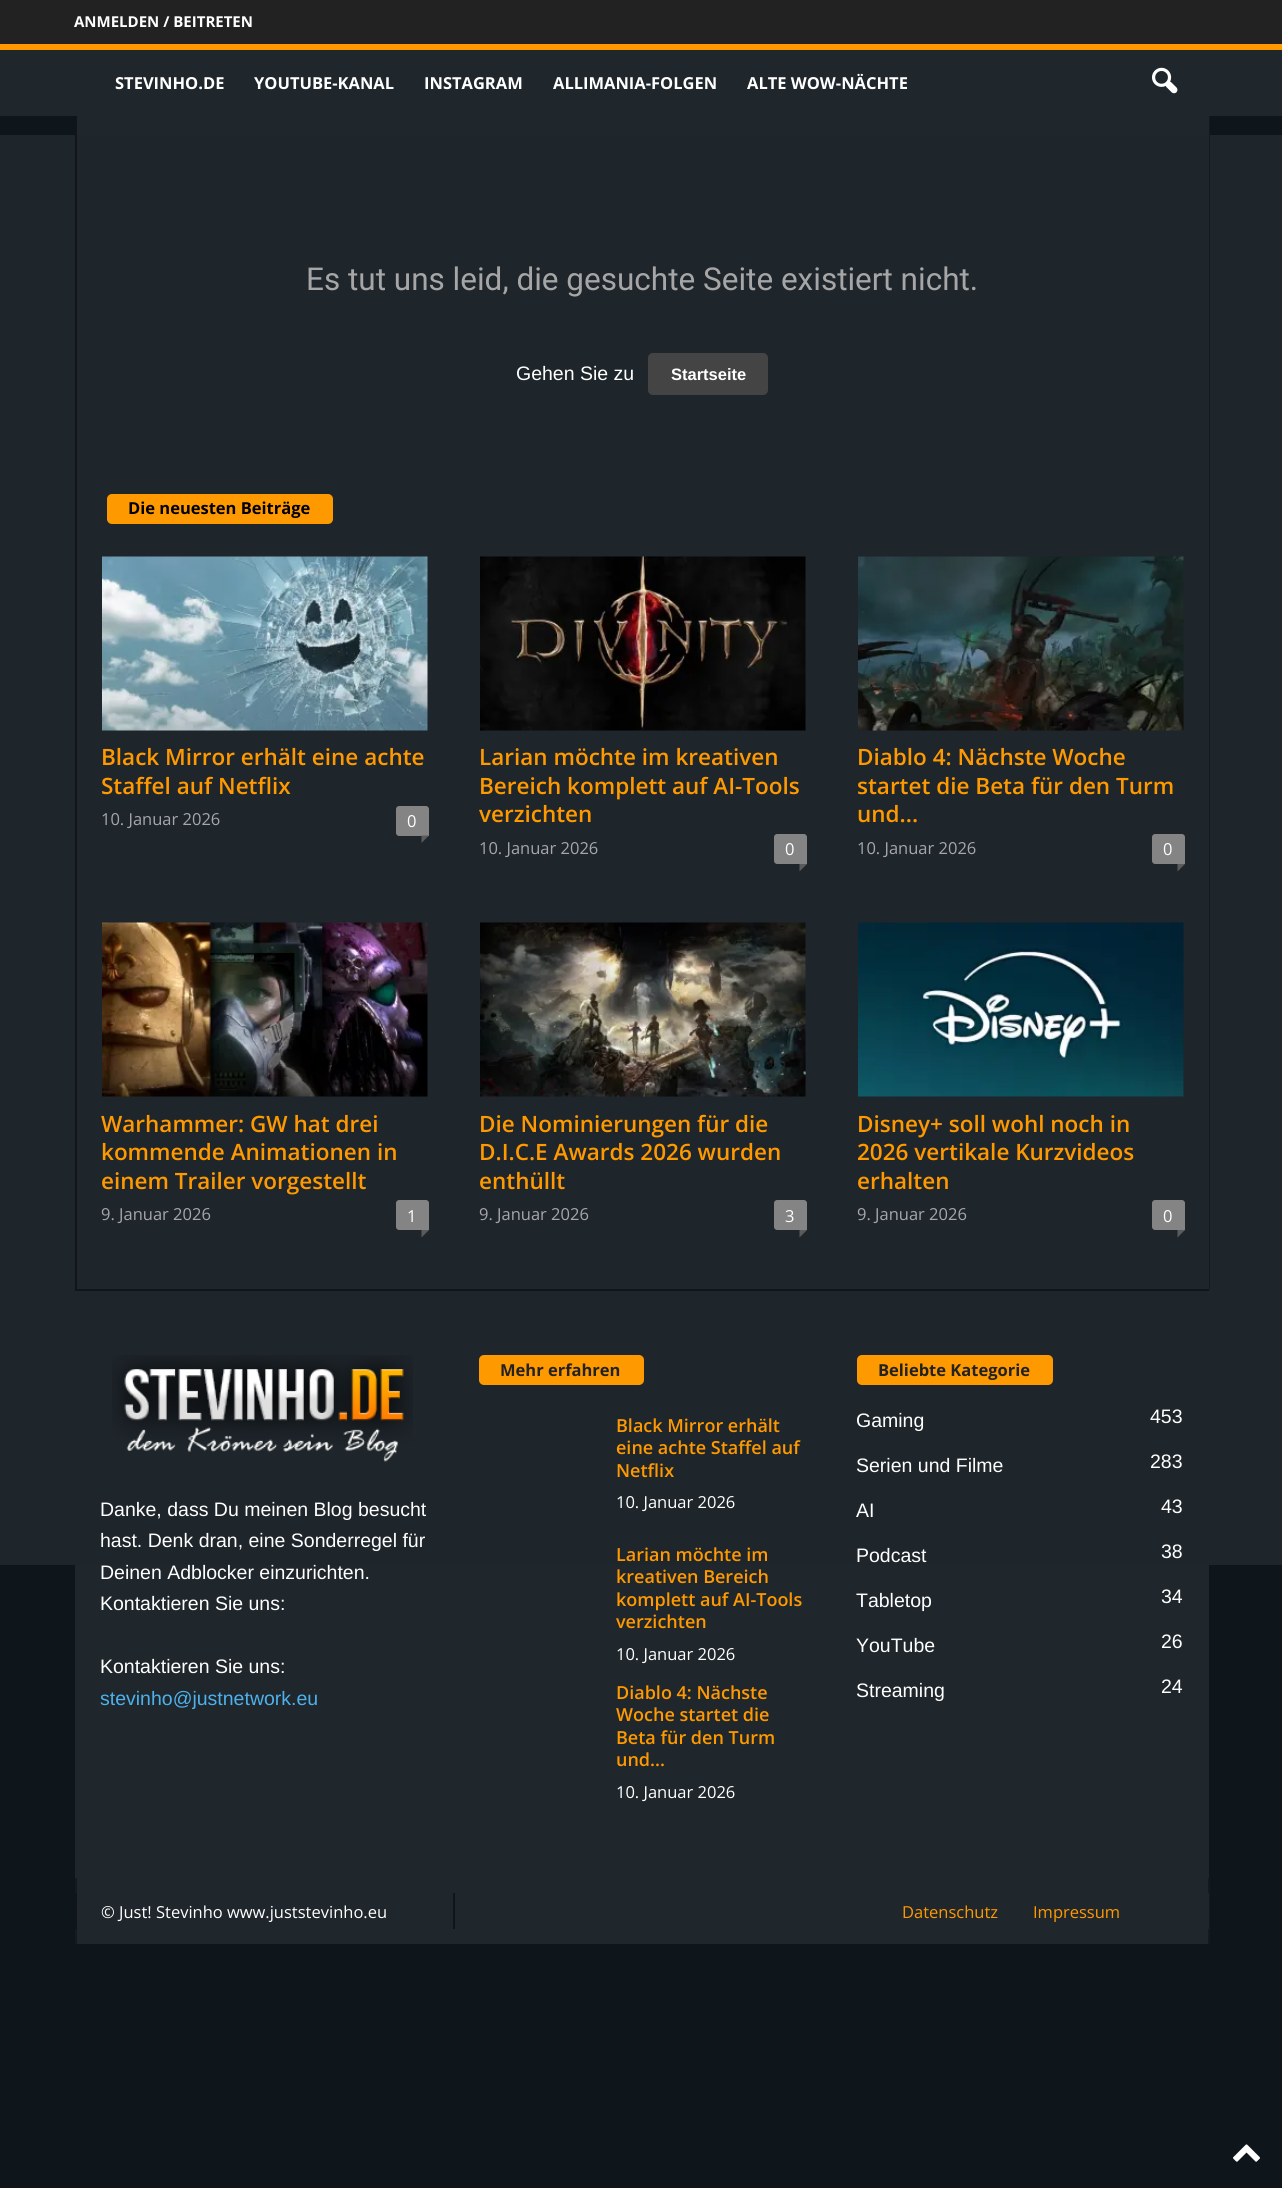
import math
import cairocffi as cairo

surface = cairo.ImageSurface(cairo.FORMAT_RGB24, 1282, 2188)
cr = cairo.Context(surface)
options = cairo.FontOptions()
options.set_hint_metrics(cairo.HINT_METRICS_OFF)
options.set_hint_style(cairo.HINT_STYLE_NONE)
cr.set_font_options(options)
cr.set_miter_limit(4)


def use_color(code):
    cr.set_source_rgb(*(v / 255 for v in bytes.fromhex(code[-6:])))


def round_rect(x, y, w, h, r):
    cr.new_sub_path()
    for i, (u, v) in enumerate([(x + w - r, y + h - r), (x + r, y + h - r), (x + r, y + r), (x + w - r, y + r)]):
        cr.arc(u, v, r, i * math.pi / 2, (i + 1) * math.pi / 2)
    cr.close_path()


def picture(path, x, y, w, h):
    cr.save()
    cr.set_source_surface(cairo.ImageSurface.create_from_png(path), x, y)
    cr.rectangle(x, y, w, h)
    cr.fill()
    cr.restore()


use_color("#0e151b")
cr.paint()
use_color("#1e252b")
cr.rectangle(0, 135, 1282, 1430)
cr.fill()
use_color("#222222")
cr.rectangle(0, 0, 1282, 44)
cr.fill()
cr.select_font_face("Open Sans", cairo.FONT_SLANT_NORMAL, cairo.FONT_WEIGHT_BOLD)
cr.set_font_size(15)
use_color("#ffffff")
cr.move_to(74, 27)
cr.show_text("ANMELDEN / BEITRETEN")
use_color("#1f262c")
cr.rectangle(0, 50, 1282, 66)
cr.fill()
use_color("#ff9900")
cr.rectangle(0, 44, 1282, 6)
cr.fill()
cr.set_font_size(16.5)
use_color("#ffffff")
cr.move_to(115, 89)
cr.show_text("STEVINHO.DE")
cr.move_to(254, 89)
cr.show_text("YOUTUBE-KANAL")
cr.move_to(424, 89)
cr.show_text("INSTAGRAM")
cr.move_to(553, 89)
cr.show_text("ALLIMANIA-FOLGEN")
cr.move_to(747, 89)
cr.show_text("ALTE WOW-NÄCHTE")
picture("img1.png", 1152, 67, 26, 27)
use_color("#111419")
cr.rectangle(75, 1289, 1134, 2)
cr.fill()
use_color("#1f262c")
cr.rectangle(77, 116, 1132, 19)
cr.fill()
use_color("#111419")
cr.rectangle(75, 116, 2, 1173)
cr.fill()
cr.select_font_face("Roboto")
cr.set_font_size(31.5)
use_color("#a6a6a6")
cr.move_to(306, 290)
cr.show_text("Es tut uns leid, die gesuchte Seite existiert nicht.")
cr.select_font_face("Liberation Sans")
cr.set_font_size(19.5)
use_color("#ffffff")
cr.move_to(516, 380)
cr.show_text("Gehen Sie zu")
use_color("#444444")
round_rect(648, 353, 120, 42, 5)
cr.fill()
cr.select_font_face("Liberation Sans", cairo.FONT_SLANT_NORMAL, cairo.FONT_WEIGHT_BOLD)
cr.set_font_size(16.5)
use_color("#ffffff")
cr.move_to(671, 380)
cr.show_text("Startseite")
use_color("#ff9900")
round_rect(107, 494, 226, 30, 5)
cr.fill()
cr.select_font_face("Open Sans", cairo.FONT_SLANT_NORMAL, cairo.FONT_WEIGHT_BOLD)
use_color("#000000")
cr.move_to(128, 514)
cr.show_text("Die neuesten Beiträge")
picture("img2.png", 102, 556, 326, 175)
cr.select_font_face("Open Sans SemiBold")
cr.set_font_size(22.5)
use_color("#ff9900")
cr.move_to(101, 765)
cr.show_text("Black Mirror erhält eine achte")
cr.move_to(101, 794)
cr.show_text("Staffel auf Netflix")
cr.select_font_face("Open Sans")
cr.set_font_size(16.5)
use_color("#a7a6ac")
cr.move_to(101, 825)
cr.show_text("10. Januar 2026")
use_color("#848484")
cr.new_path()
cr.move_to(399, 806)
cr.line_to(426, 806)
cr.curve_to(427.5, 806, 429, 807.5, 429, 809)
cr.line_to(429, 836)
cr.line_to(399, 836)
cr.curve_to(397.5, 836, 396, 834.5, 396, 833)
cr.line_to(396, 809)
cr.curve_to(396, 807.5, 397.5, 806, 399, 806)
cr.close_path()
cr.fill()
use_color("#ffffff")
cr.move_to(407, 827)
cr.show_text("0")
use_color("#5b5b5b")
cr.new_path()
cr.move_to(421.5, 835.5)
cr.line_to(429, 835.5)
cr.line_to(421.5, 843)
cr.close_path()
cr.fill()
picture("img3.png", 480, 556, 326, 175)
cr.select_font_face("Open Sans SemiBold")
cr.set_font_size(22.5)
use_color("#ff9900")
cr.move_to(479, 765)
cr.show_text("Larian möchte im kreativen")
cr.move_to(479, 794)
cr.show_text("Bereich komplett auf AI-Tools")
cr.move_to(479, 822)
cr.show_text("verzichten")
cr.select_font_face("Open Sans")
cr.set_font_size(16.5)
use_color("#a7a6ac")
cr.move_to(479, 854)
cr.show_text("10. Januar 2026")
use_color("#848484")
cr.new_path()
cr.move_to(777, 834)
cr.line_to(804, 834)
cr.curve_to(805.5, 834, 807, 835.5, 807, 837)
cr.line_to(807, 864)
cr.line_to(777, 864)
cr.curve_to(775.5, 864, 774, 862.5, 774, 861)
cr.line_to(774, 837)
cr.curve_to(774, 835.5, 775.5, 834, 777, 834)
cr.close_path()
cr.fill()
use_color("#ffffff")
cr.move_to(785, 855)
cr.show_text("0")
use_color("#5b5b5b")
cr.new_path()
cr.move_to(799.5, 864)
cr.line_to(807, 864)
cr.line_to(799.5, 871.5)
cr.close_path()
cr.fill()
picture("img4.png", 858, 556, 326, 175)
cr.select_font_face("Open Sans SemiBold")
cr.set_font_size(22.5)
use_color("#ff9900")
cr.move_to(857, 765)
cr.show_text("Diablo 4: Nächste Woche")
cr.move_to(857, 794)
cr.show_text("startet die Beta für den Turm")
cr.move_to(857, 822)
cr.show_text("und...")
cr.select_font_face("Open Sans")
cr.set_font_size(16.5)
use_color("#a7a6ac")
cr.move_to(857, 854)
cr.show_text("10. Januar 2026")
use_color("#848484")
cr.new_path()
cr.move_to(1155, 834)
cr.line_to(1182, 834)
cr.curve_to(1183.5, 834, 1185, 835.5, 1185, 837)
cr.line_to(1185, 864)
cr.line_to(1155, 864)
cr.curve_to(1153.5, 864, 1152, 862.5, 1152, 861)
cr.line_to(1152, 837)
cr.curve_to(1152, 835.5, 1153.5, 834, 1155, 834)
cr.close_path()
cr.fill()
use_color("#ffffff")
cr.move_to(1163, 855)
cr.show_text("0")
use_color("#5b5b5b")
cr.new_path()
cr.move_to(1177.5, 864)
cr.line_to(1185, 864)
cr.line_to(1177.5, 871.5)
cr.close_path()
cr.fill()
picture("img5.png", 102, 922, 326, 175)
cr.select_font_face("Open Sans SemiBold")
cr.set_font_size(22.5)
use_color("#ff9900")
cr.move_to(101, 1132)
cr.show_text("Warhammer: GW hat drei")
cr.move_to(101, 1160)
cr.show_text("kommende Animationen in")
cr.move_to(101, 1189)
cr.show_text("einem Trailer vorgestellt")
cr.select_font_face("Open Sans")
cr.set_font_size(16.5)
use_color("#a7a6ac")
cr.move_to(101, 1220)
cr.show_text("9. Januar 2026")
use_color("#848484")
cr.new_path()
cr.move_to(399, 1200)
cr.line_to(426, 1200)
cr.curve_to(427.5, 1200, 429, 1201.5, 429, 1203)
cr.line_to(429, 1230)
cr.line_to(399, 1230)
cr.curve_to(397.5, 1230, 396, 1228.5, 396, 1227)
cr.line_to(396, 1203)
cr.curve_to(396, 1201.5, 397.5, 1200, 399, 1200)
cr.close_path()
cr.fill()
use_color("#ffffff")
cr.move_to(407, 1222)
cr.show_text("1")
use_color("#5b5b5b")
cr.new_path()
cr.move_to(421.5, 1230)
cr.line_to(429, 1230)
cr.line_to(421.5, 1237.5)
cr.close_path()
cr.fill()
picture("img6.png", 480, 922, 326, 175)
cr.select_font_face("Open Sans SemiBold")
cr.set_font_size(22.5)
use_color("#ff9900")
cr.move_to(479, 1132)
cr.show_text("Die Nominierungen für die")
cr.move_to(479, 1160)
cr.show_text("D.I.C.E Awards 2026 wurden")
cr.move_to(479, 1189)
cr.show_text("enthüllt")
cr.select_font_face("Open Sans")
cr.set_font_size(16.5)
use_color("#a7a6ac")
cr.move_to(479, 1220)
cr.show_text("9. Januar 2026")
use_color("#848484")
cr.new_path()
cr.move_to(777, 1200)
cr.line_to(804, 1200)
cr.curve_to(805.5, 1200, 807, 1201.5, 807, 1203)
cr.line_to(807, 1230)
cr.line_to(777, 1230)
cr.curve_to(775.5, 1230, 774, 1228.5, 774, 1227)
cr.line_to(774, 1203)
cr.curve_to(774, 1201.5, 775.5, 1200, 777, 1200)
cr.close_path()
cr.fill()
use_color("#ffffff")
cr.move_to(785, 1222)
cr.show_text("3")
use_color("#5b5b5b")
cr.new_path()
cr.move_to(799.5, 1230)
cr.line_to(807, 1230)
cr.line_to(799.5, 1237.5)
cr.close_path()
cr.fill()
picture("img7.png", 858, 922, 326, 175)
cr.select_font_face("Open Sans SemiBold")
cr.set_font_size(22.5)
use_color("#ff9900")
cr.move_to(857, 1132)
cr.show_text("Disney+ soll wohl noch in")
cr.move_to(857, 1160)
cr.show_text("2026 vertikale Kurzvideos")
cr.move_to(857, 1189)
cr.show_text("erhalten")
cr.select_font_face("Open Sans")
cr.set_font_size(16.5)
use_color("#a7a6ac")
cr.move_to(857, 1220)
cr.show_text("9. Januar 2026")
use_color("#848484")
cr.new_path()
cr.move_to(1155, 1200)
cr.line_to(1182, 1200)
cr.curve_to(1183.5, 1200, 1185, 1201.5, 1185, 1203)
cr.line_to(1185, 1230)
cr.line_to(1155, 1230)
cr.curve_to(1153.5, 1230, 1152, 1228.5, 1152, 1227)
cr.line_to(1152, 1203)
cr.curve_to(1152, 1201.5, 1153.5, 1200, 1155, 1200)
cr.close_path()
cr.fill()
use_color("#ffffff")
cr.move_to(1163, 1222)
cr.show_text("0")
use_color("#5b5b5b")
cr.new_path()
cr.move_to(1177.5, 1230)
cr.line_to(1185, 1230)
cr.line_to(1177.5, 1237.5)
cr.close_path()
cr.fill()
use_color("#131a20")
cr.rectangle(1209, 116, 1, 1173)
cr.fill()
picture("img8.png", 112, 1355, 301, 107)
cr.select_font_face("Liberation Sans")
cr.set_font_size(19.5)
use_color("#ffffff")
cr.move_to(100, 1516)
cr.show_text("Danke, dass Du meinen Blog besucht")
cr.move_to(100, 1547)
cr.show_text("hast. Denk dran, eine Sonderregel für")
use_color("#1f262c")
cr.rectangle(75, 1565, 1134, 313)
cr.fill()
use_color("#ffffff")
cr.move_to(100, 1579)
cr.show_text("Deinen Adblocker einzurichten.")
cr.move_to(100, 1610)
cr.show_text("Kontaktieren Sie uns:")
cr.move_to(100, 1673)
cr.show_text("Kontaktieren Sie uns:")
use_color("#4db2ec")
cr.move_to(100, 1705)
cr.show_text("stevinho@justnetwork.eu")
use_color("#ff9900")
round_rect(479, 1355, 165, 30, 5)
cr.fill()
cr.select_font_face("Open Sans", cairo.FONT_SLANT_NORMAL, cairo.FONT_WEIGHT_BOLD)
cr.set_font_size(16.5)
use_color("#222222")
cr.move_to(500, 1376)
cr.show_text("Mehr erfahren")
cr.select_font_face("Open Sans SemiBold")
cr.set_font_size(18)
use_color("#ff9900")
cr.move_to(616, 1432)
cr.show_text("Black Mirror erhält")
cr.move_to(616, 1454)
cr.show_text("eine achte Staffel auf")
cr.move_to(616, 1477)
cr.show_text("Netflix")
cr.select_font_face("Open Sans")
cr.set_font_size(16.5)
use_color("#ffffff")
cr.move_to(616, 1508)
cr.show_text("10. Januar 2026")
cr.select_font_face("Open Sans SemiBold")
cr.set_font_size(18)
use_color("#ff9900")
cr.move_to(616, 1561)
cr.show_text("Larian möchte im")
cr.move_to(616, 1583)
cr.show_text("kreativen Bereich")
cr.move_to(616, 1606)
cr.show_text("komplett auf AI-Tools")
cr.move_to(616, 1628)
cr.show_text("verzichten")
cr.select_font_face("Open Sans")
cr.set_font_size(16.5)
use_color("#ffffff")
cr.move_to(616, 1660)
cr.show_text("10. Januar 2026")
cr.select_font_face("Open Sans SemiBold")
cr.set_font_size(18)
use_color("#ff9900")
cr.move_to(616, 1699)
cr.show_text("Diablo 4: Nächste")
cr.move_to(616, 1721)
cr.show_text("Woche startet die")
cr.move_to(616, 1744)
cr.show_text("Beta für den Turm")
cr.move_to(616, 1766)
cr.show_text("und...")
cr.select_font_face("Open Sans")
cr.set_font_size(16.5)
use_color("#ffffff")
cr.move_to(616, 1798)
cr.show_text("10. Januar 2026")
use_color("#ff9900")
round_rect(857, 1355, 196, 30, 5)
cr.fill()
cr.select_font_face("Open Sans", cairo.FONT_SLANT_NORMAL, cairo.FONT_WEIGHT_BOLD)
use_color("#222222")
cr.move_to(878, 1376)
cr.show_text("Beliebte Kategorie")
cr.select_font_face("Liberation Sans")
cr.set_font_size(19.5)
use_color("#ffffff")
cr.move_to(856, 1427)
cr.show_text("Gaming")
cr.move_to(1150, 1423)
cr.show_text("453")
cr.move_to(856, 1472)
cr.show_text("Serien und Filme")
cr.move_to(1150, 1468)
cr.show_text("283")
cr.move_to(856, 1517)
cr.show_text("AI")
cr.move_to(1161, 1513)
cr.show_text("43")
cr.move_to(856, 1562)
cr.show_text("Podcast")
cr.move_to(1161, 1558)
cr.show_text("38")
cr.move_to(856, 1607)
cr.show_text("Tabletop")
cr.move_to(1161, 1603)
cr.show_text("34")
cr.move_to(856, 1652)
cr.show_text("YouTube")
cr.move_to(1161, 1648)
cr.show_text("26")
cr.move_to(856, 1697)
cr.show_text("Streaming")
cr.move_to(1161, 1693)
cr.show_text("24")
use_color("#1f262c")
cr.rectangle(77, 1878, 1131, 66)
cr.fill()
use_color("#131a20")
cr.rectangle(75, 1878, 2, 66)
cr.fill()
use_color("#111419")
cr.rectangle(75, 1893, 2, 36)
cr.fill()
cr.select_font_face("Open Sans")
cr.set_font_size(16.5)
use_color("#ffffff")
cr.move_to(101, 1918)
cr.show_text("© Just! Stevinho www.juststevinho.eu")
use_color("#131a20")
cr.rectangle(1208, 1878, 2, 66)
cr.fill()
use_color("#1f262c")
cr.rectangle(1208, 1893, 1, 36)
cr.fill()
use_color("#111419")
cr.rectangle(453, 1893, 2, 36)
cr.fill()
use_color("#ff9900")
cr.move_to(902, 1918)
cr.show_text("Datenschutz")
cr.move_to(1033, 1918)
cr.show_text("Impressum")
picture("img9.png", 1233, 2144, 27, 18)
surface.write_to_png("result.png")
